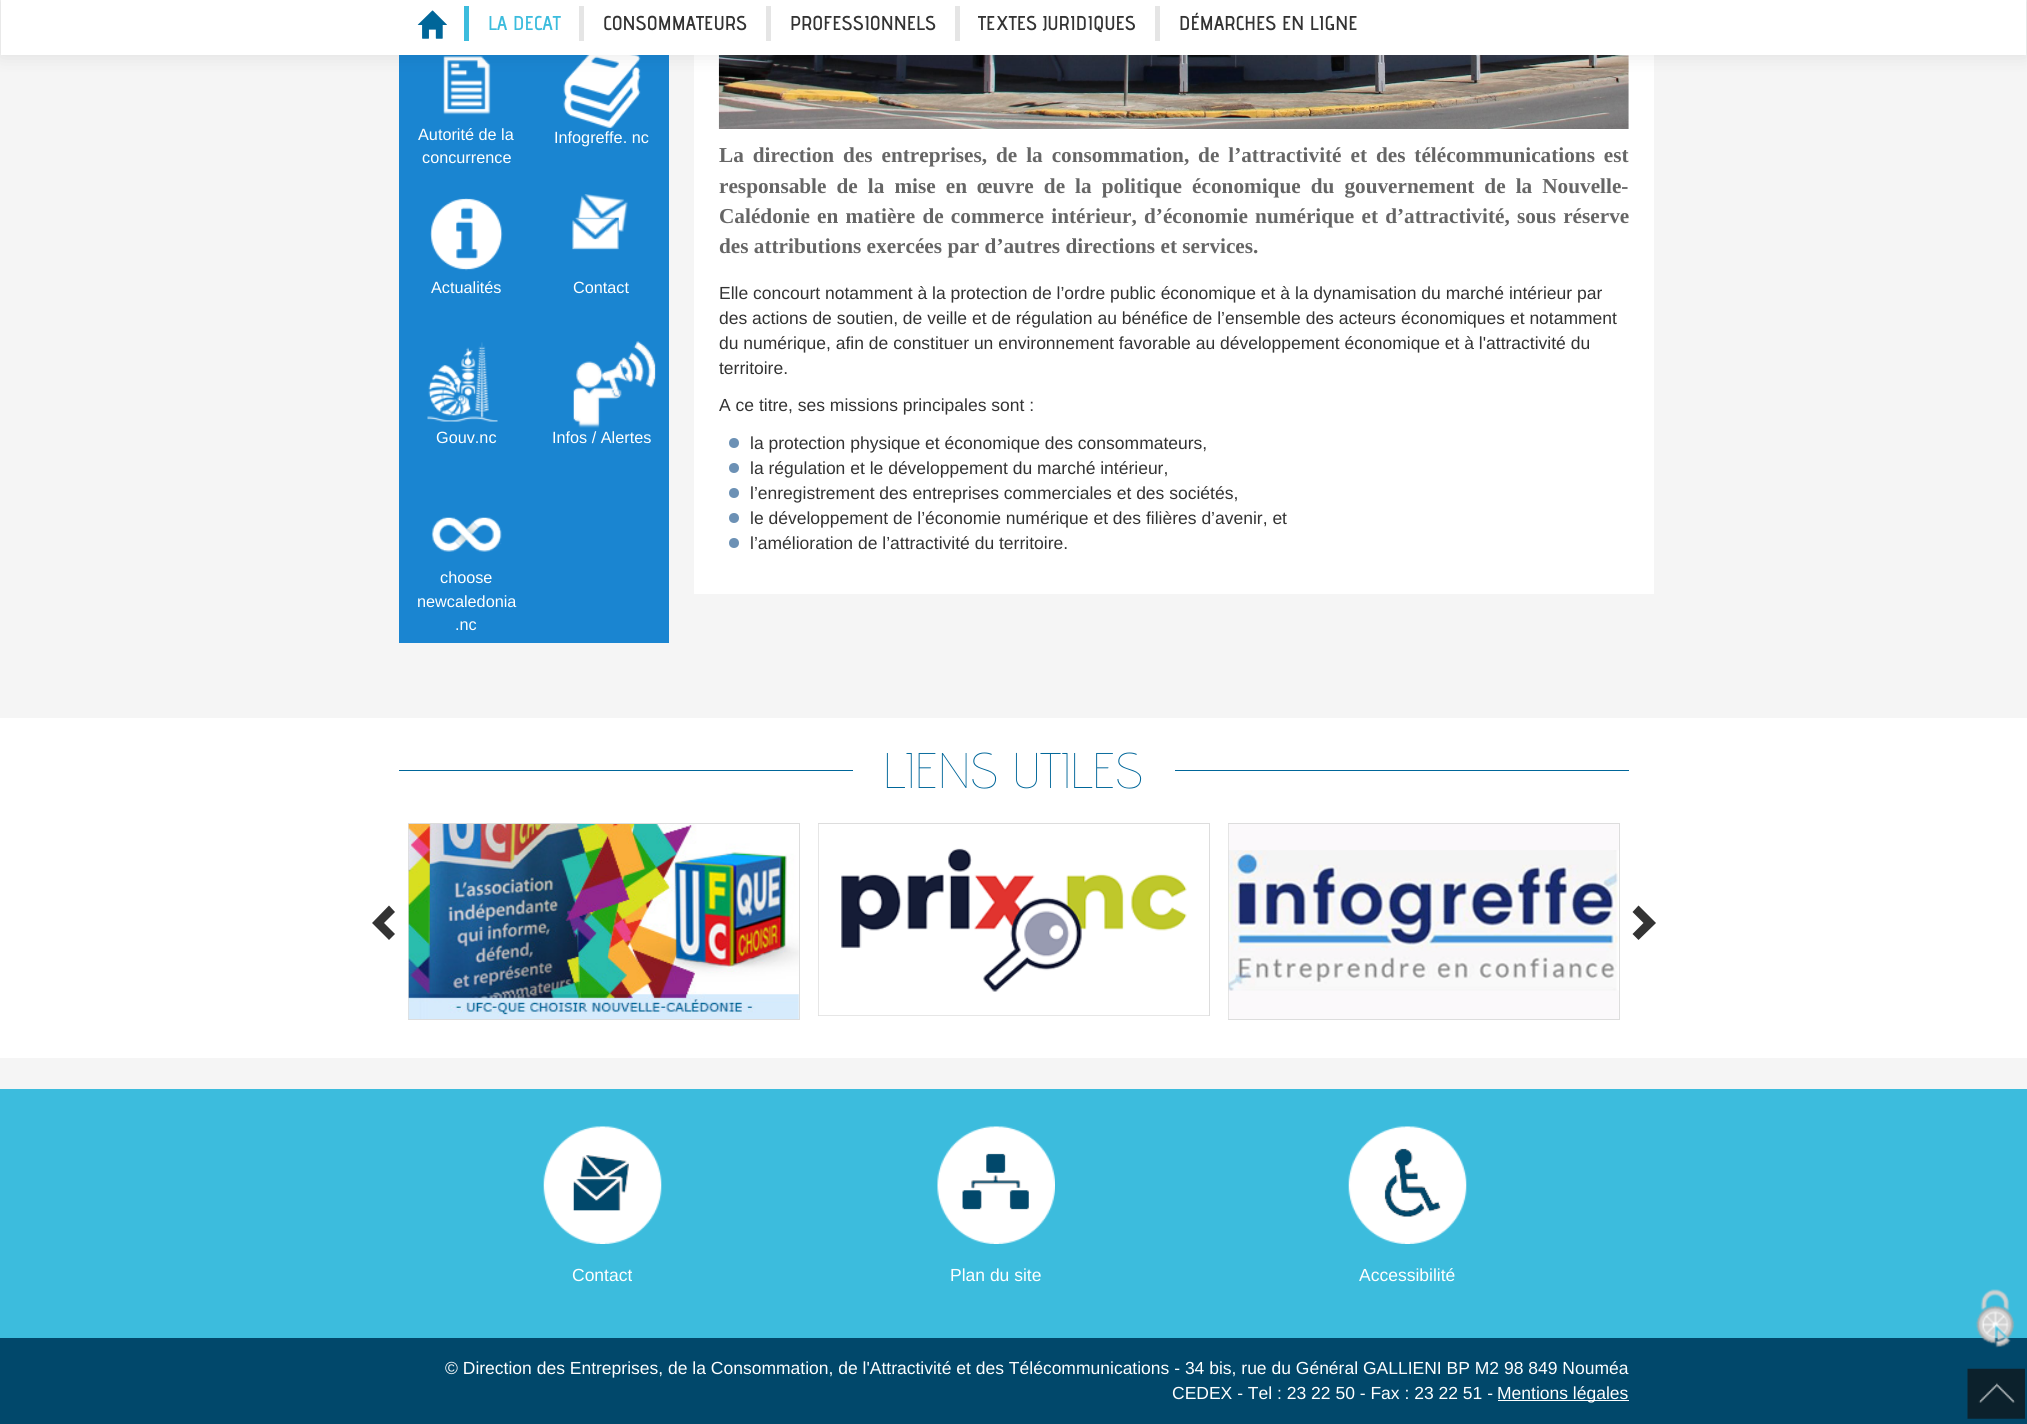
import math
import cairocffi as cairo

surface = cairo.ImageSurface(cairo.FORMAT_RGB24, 2027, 1424)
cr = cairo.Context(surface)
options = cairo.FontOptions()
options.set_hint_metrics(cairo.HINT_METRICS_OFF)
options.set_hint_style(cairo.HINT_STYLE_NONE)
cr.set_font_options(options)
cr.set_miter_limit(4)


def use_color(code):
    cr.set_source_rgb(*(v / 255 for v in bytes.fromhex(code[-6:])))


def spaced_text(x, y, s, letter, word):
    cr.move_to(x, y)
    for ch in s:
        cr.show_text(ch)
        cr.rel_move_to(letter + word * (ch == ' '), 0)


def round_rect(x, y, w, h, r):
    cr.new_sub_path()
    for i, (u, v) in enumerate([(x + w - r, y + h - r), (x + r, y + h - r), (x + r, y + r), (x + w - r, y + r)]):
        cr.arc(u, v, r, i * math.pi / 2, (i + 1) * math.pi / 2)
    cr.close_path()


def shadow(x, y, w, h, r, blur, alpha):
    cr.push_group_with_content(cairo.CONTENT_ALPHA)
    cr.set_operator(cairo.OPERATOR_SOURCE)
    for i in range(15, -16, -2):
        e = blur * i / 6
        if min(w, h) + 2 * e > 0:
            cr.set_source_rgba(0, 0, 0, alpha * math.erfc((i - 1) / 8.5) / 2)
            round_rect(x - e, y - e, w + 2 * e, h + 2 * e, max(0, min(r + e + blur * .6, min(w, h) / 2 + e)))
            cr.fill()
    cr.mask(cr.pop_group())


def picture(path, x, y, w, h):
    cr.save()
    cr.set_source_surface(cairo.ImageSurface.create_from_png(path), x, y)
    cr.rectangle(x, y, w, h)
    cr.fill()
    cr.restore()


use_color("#f5f5f5")
cr.paint()
use_color("#1a85d1")
cr.rectangle(399, 55, 270, 588)
cr.fill()
picture("img2.png", 443, 56, 48, 59)
picture("img3.png", 563, 55, 78, 73)
use_color("#ffffff")
cr.rectangle(694, 55, 960, 539)
cr.fill()
picture("img9.png", 718, 55, 911, 74)
use_color("#000000")
shadow(1, 0, 2025, 55, 0, 9.5, 0.1)
use_color("#ffffff")
cr.rectangle(1, 0, 2025, 55)
cr.fill()
picture("img1.png", 417, 10, 30, 29)
use_color("#3cbcdd")
cr.rectangle(464, 6, 5, 35)
cr.fill()
cr.select_font_face("Advent Pro SemiBold")
cr.set_font_size(20)
cr.move_to(488, 30)
cr.show_text("LA DECAT")
use_color("#e5e5e5")
cr.rectangle(579, 6, 5, 35)
cr.fill()
use_color("#333333")
cr.move_to(603, 30)
cr.show_text("CONSOMMATEURS")
use_color("#e5e5e5")
cr.rectangle(766, 6, 5, 35)
cr.fill()
use_color("#333333")
cr.move_to(790, 30)
cr.show_text("PROFESSIONNELS")
use_color("#e5e5e5")
cr.rectangle(955, 6, 5, 35)
cr.fill()
use_color("#333333")
cr.move_to(978, 30)
cr.show_text("TEXTES JURIDIQUES")
use_color("#e5e5e5")
cr.rectangle(1155, 6, 5, 35)
cr.fill()
use_color("#333333")
cr.move_to(1179, 30)
cr.show_text("DÉMARCHES EN LIGNE")
cr.select_font_face("Liberation Sans")
cr.set_font_size(16.25)
use_color("#ffffff")
cr.move_to(418, 140)
cr.show_text("Autorité de la")
cr.move_to(422, 163)
cr.show_text("concurrence")
cr.move_to(554, 143)
cr.show_text("Infogreffe. nc")
picture("img4.png", 430, 198, 73, 73)
cr.move_to(431, 293)
cr.show_text("Actualités")
picture("img5.png", 572, 194, 56, 56)
cr.move_to(573, 293)
cr.show_text("Contact")
picture("img6.png", 427, 342, 71, 80)
cr.move_to(436, 443)
cr.show_text("Gouv.nc")
picture("img7.png", 573, 341, 83, 87)
cr.move_to(552, 443)
cr.show_text("Infos / Alertes")
picture("img8.png", 431, 517, 71, 35)
cr.move_to(440, 583)
cr.show_text("choose")
cr.move_to(417, 607)
cr.show_text("newcaledonia")
cr.move_to(455, 630)
cr.show_text(".nc")
cr.select_font_face("Liberation Serif", cairo.FONT_SLANT_NORMAL, cairo.FONT_WEIGHT_BOLD)
cr.set_font_size(21.25)
use_color("#666666")
spaced_text(719, 162, "La direction des entreprises, de la consommation, de l’attractivité et des télécommunications est", 0, 3.6)
spaced_text(719, 193, "responsable de la mise en œuvre de la politique économique du gouvernement de la Nouvelle-", 0, 4.75)
spaced_text(719, 223, "Calédonie en matière de commerce intérieur, d’économie numérique et d’attractivité, sous réserve", 0, 1.9)
cr.move_to(719, 253)
cr.show_text("des attributions exercées par d’autres directions et services.")
cr.select_font_face("Liberation Sans")
cr.set_font_size(17.5)
use_color("#333333")
cr.move_to(719, 299)
cr.show_text("Elle concourt notamment à la protection de l’ordre public économique et à la dynamisation du marché intérieur par")
cr.move_to(719, 324)
cr.show_text("des actions de soutien, de veille et de régulation au bénéfice de l’ensemble des acteurs économiques et notamment")
cr.move_to(719, 349)
cr.show_text("du numérique, afin de constituer un environnement favorable au développement économique et à l'attractivité du")
cr.move_to(719, 374)
cr.show_text("territoire.")
cr.move_to(719, 411)
cr.show_text("A ce titre, ses missions principales sont :")
use_color("#6c91b5")
cr.new_path()
cr.arc(734, 443, 5, 0, 2 * math.pi)
cr.fill()
use_color("#333333")
cr.move_to(750, 449)
cr.show_text("la protection physique et économique des consommateurs,")
use_color("#6c91b5")
cr.new_path()
cr.arc(734, 468, 5, 0, 2 * math.pi)
cr.fill()
use_color("#333333")
cr.move_to(750, 474)
cr.show_text("la régulation et le développement du marché intérieur,")
use_color("#6c91b5")
cr.new_path()
cr.arc(734, 493, 5, 0, 2 * math.pi)
cr.fill()
use_color("#333333")
cr.move_to(750, 499)
cr.show_text("l’enregistrement des entreprises commerciales et des sociétés,")
use_color("#6c91b5")
cr.new_path()
cr.arc(734, 518, 5, 0, 2 * math.pi)
cr.fill()
use_color("#333333")
cr.move_to(750, 524)
cr.show_text("le développement de l’économie numérique et des filières d’avenir, et")
use_color("#6c91b5")
cr.new_path()
cr.arc(734, 543, 5, 0, 2 * math.pi)
cr.fill()
use_color("#333333")
cr.move_to(750, 549)
cr.show_text("l’amélioration de l’attractivité du territoire.")
use_color("#ffffff")
cr.rectangle(0, 718, 2027, 340)
cr.fill()
use_color("#006699")
cr.rectangle(399, 770, 1230, 1)
cr.fill()
use_color("#ffffff")
cr.rectangle(853, 770, 322, 1)
cr.fill()
cr.select_font_face("Advent Pro Thin")
cr.set_font_size(50)
use_color("#006699")
cr.move_to(883, 788)
cr.show_text("LIENS UTILES")
use_color("#333333")
cr.new_path()
cr.move_to(395, 912)
cr.line_to(384, 923)
cr.line_to(395, 934)
cr.line_to(389, 940)
cr.line_to(372, 923)
cr.line_to(389, 905.5)
cr.close_path()
cr.fill()
cr.rectangle(408.5, 823.5, 391, 196)
use_color("#dddddd")
cr.set_line_width(1)
cr.stroke()
picture("img10.png", 408, 824, 391, 195)
cr.rectangle(818.5, 823.5, 391, 192)
cr.stroke()
picture("img11.png", 818, 824, 391, 192)
cr.rectangle(1228.5, 823.5, 391, 196)
cr.stroke()
picture("img12.png", 1228, 824, 391, 195)
use_color("#333333")
cr.new_path()
cr.move_to(1656, 923)
cr.line_to(1638.5, 940)
cr.line_to(1632.5, 934)
cr.line_to(1643.5, 923)
cr.line_to(1632.5, 912)
cr.line_to(1638.5, 905.5)
cr.close_path()
cr.fill()
use_color("#3cbcdd")
cr.rectangle(0, 1089, 2027, 249)
cr.fill()
picture("img13.png", 543, 1126, 119, 118)
cr.select_font_face("Liberation Sans")
cr.set_font_size(17.5)
use_color("#ffffff")
cr.move_to(572, 1281)
cr.show_text("Contact")
picture("img14.png", 937, 1126, 118, 118)
cr.move_to(950, 1281)
cr.show_text("Plan du site")
picture("img15.png", 1348, 1126, 119, 118)
cr.move_to(1359, 1281)
cr.show_text("Accessibilité")
use_color("#01486b")
cr.rectangle(0, 1338, 2027, 86)
cr.fill()
use_color("#ffffff")
cr.move_to(445, 1374)
cr.show_text("© Direction des Entreprises, de la Consommation, de l'Attractivité et des Télécommunications - 34 bis, rue du Général GALLIENI BP M2 98 849 Nouméa")
cr.move_to(1172, 1399)
cr.show_text("CEDEX - Tel : 23 22 50 - Fax : 23 22 51 -")
cr.rectangle(1498, 1400, 131, 1)
cr.fill()
cr.move_to(1497, 1399)
cr.show_text("Mentions légales")
picture("img16.png", 1975, 1289, 40, 59)
picture("img17.png", 1967, 1368, 58, 51)
surface.write_to_png("result.png")
